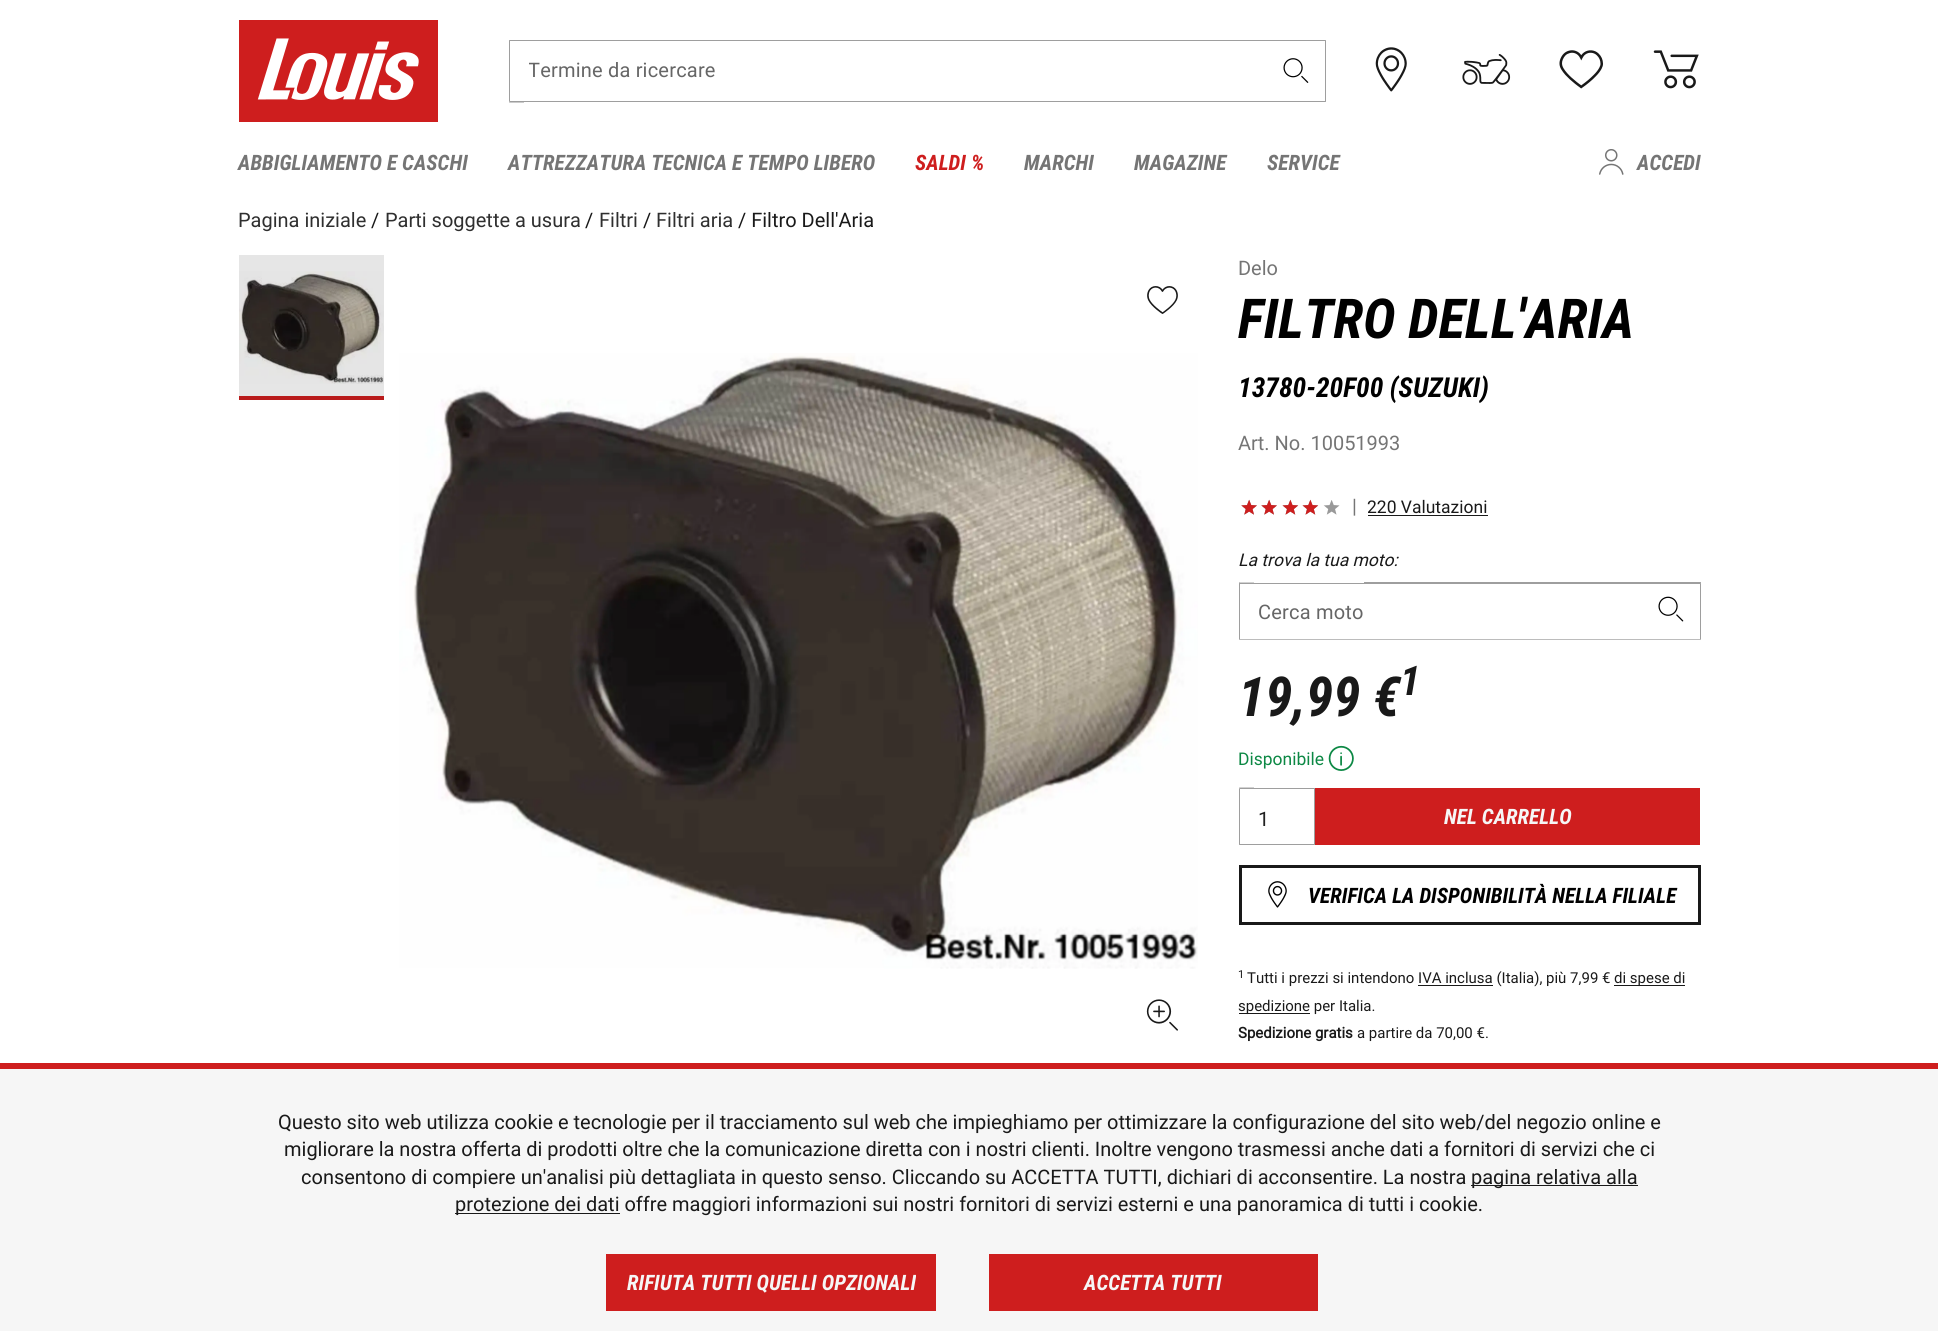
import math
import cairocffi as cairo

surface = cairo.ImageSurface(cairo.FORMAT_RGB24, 1938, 1331)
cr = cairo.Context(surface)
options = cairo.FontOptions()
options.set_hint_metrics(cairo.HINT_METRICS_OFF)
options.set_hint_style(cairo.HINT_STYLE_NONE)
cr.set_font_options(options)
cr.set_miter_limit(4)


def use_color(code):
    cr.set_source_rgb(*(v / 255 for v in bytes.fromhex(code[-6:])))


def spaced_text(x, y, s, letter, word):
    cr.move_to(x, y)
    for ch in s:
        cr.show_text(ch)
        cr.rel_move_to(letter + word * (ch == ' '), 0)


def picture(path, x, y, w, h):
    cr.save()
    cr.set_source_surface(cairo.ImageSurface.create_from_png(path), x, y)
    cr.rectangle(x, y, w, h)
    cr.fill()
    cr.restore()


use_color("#ffffff")
cr.paint()
use_color("#e6e6e6")
cr.rectangle(239, 255, 145, 141)
cr.fill()
picture("img1.png", 239, 20, 199, 102)
use_color("#9e9e9e")
cr.new_path()
cr.move_to(509, 40)
cr.line_to(524, 40)
cr.line_to(524, 41)
cr.line_to(510, 41)
cr.close_path()
cr.move_to(524, 102.5)
cr.line_to(509, 102.5)
cr.line_to(510, 101)
cr.line_to(524, 101)
cr.close_path()
cr.fill()
cr.set_source_rgba(0, 0, 0, 0.38)
cr.new_path()
cr.move_to(509, 102)
cr.line_to(509, 40)
cr.line_to(510, 41)
cr.line_to(510, 101)
cr.close_path()
cr.fill()
use_color("#9e9e9e")
cr.rectangle(524, 40, 191, 1)
cr.fill()
cr.rectangle(524, 101, 191, 1)
cr.fill()
cr.save()
cr.rectangle(529, 59, 191, 24)
cr.clip()
cr.select_font_face("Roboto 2")
cr.set_font_size(20)
use_color("#666666")
spaced_text(528, 77, "Termine da ricercare", 0.2, 0)
cr.restore()
cr.new_path()
cr.move_to(715, 40)
cr.line_to(1326, 40)
cr.line_to(1325, 41)
cr.line_to(715, 41)
cr.close_path()
cr.fill()
cr.set_source_rgba(0, 0, 0, 0.38)
cr.new_path()
cr.move_to(1326, 40)
cr.line_to(1326, 102)
cr.line_to(1325, 101)
cr.line_to(1325, 41)
cr.close_path()
cr.fill()
cr.new_path()
cr.move_to(1326, 102)
cr.line_to(715, 102)
cr.line_to(715, 101)
cr.line_to(1325, 101)
cr.close_path()
cr.fill()
picture("img2.png", 1283, 58, 26, 25)
picture("img3.png", 1375, 47, 32, 45)
picture("img4.png", 1462, 54, 49, 31)
picture("img5.png", 1559, 50, 44, 39)
picture("img6.png", 1653, 50, 46, 39)
cr.select_font_face("Roboto Condensed", cairo.FONT_SLANT_ITALIC, cairo.FONT_WEIGHT_BOLD)
cr.set_font_size(21.25)
use_color("#757575")
cr.move_to(238, 170)
cr.show_text("ABBIGLIAMENTO E CASCHI")
cr.move_to(508, 170)
cr.show_text("ATTREZZATURA TECNICA E TEMPO LIBERO")
use_color("#ce1e1e")
cr.move_to(915, 170)
cr.show_text("SALDI %")
use_color("#757575")
cr.move_to(1024, 170)
cr.show_text("MARCHI")
cr.move_to(1134, 170)
cr.show_text("MAGAZINE")
cr.move_to(1267, 170)
cr.show_text("SERVICE")
picture("img7.png", 1599, 149, 25, 26)
cr.move_to(1637, 170)
cr.show_text("ACCEDI")
cr.select_font_face("Roboto")
cr.set_font_size(20)
use_color("#2f2f2f")
cr.move_to(238, 227)
cr.show_text("Pagina iniziale")
use_color("#191919")
cr.move_to(371, 227)
cr.show_text("/")
use_color("#2f2f2f")
cr.move_to(385, 227)
cr.show_text("Parti soggette a usura")
use_color("#191919")
cr.move_to(585, 227)
cr.show_text("/")
use_color("#2f2f2f")
cr.move_to(599, 227)
cr.show_text("Filtri")
use_color("#191919")
cr.move_to(643, 227)
cr.show_text("/")
use_color("#2f2f2f")
cr.move_to(656, 227)
cr.show_text("Filtri aria")
use_color("#191919")
cr.move_to(738, 227)
cr.show_text("/ Filtro Dell'Aria")
picture("img8.png", 239, 271, 145, 113)
use_color("#b91b1b")
cr.rectangle(239, 396, 145, 4)
cr.fill()
picture("img9.png", 399, 353, 799, 616)
picture("img10.png", 1146, 999, 32, 32)
picture("img11.png", 1147, 286, 31, 28)
use_color("#757575")
cr.move_to(1238, 275)
cr.show_text("Delo")
cr.select_font_face("Roboto Condensed", cairo.FONT_SLANT_ITALIC, cairo.FONT_WEIGHT_BOLD)
cr.set_font_size(55)
use_color("#000000")
cr.move_to(1238, 338)
cr.show_text("FILTRO DELL'ARIA")
cr.set_font_size(27.5)
cr.move_to(1238, 397)
cr.show_text("13780-20F00 (SUZUKI)")
cr.select_font_face("Roboto")
cr.set_font_size(20)
use_color("#757575")
cr.move_to(1238, 450)
cr.show_text("Art. No. 10051993")
picture("img14.png", 1241, 500, 16, 15)
picture("img12.png", 1241, 499, 16, 16)
picture("img14.png", 1261, 500, 16, 15)
picture("img12.png", 1261, 499, 16, 16)
picture("img15.png", 1282, 500, 16, 15)
picture("img13.png", 1282, 499, 17, 16)
picture("img15.png", 1302, 500, 16, 15)
picture("img13.png", 1302, 499, 17, 16)
use_color("#fef8f8")
cr.rectangle(1323, 505, 1, 1)
cr.fill()
picture("img16.png", 1324, 500, 16, 15)
use_color("#757575")
cr.move_to(1352, 513)
cr.show_text("|")
cr.set_font_size(17.5)
use_color("#191919")
cr.move_to(1367, 513)
cr.show_text("220 Valutazioni")
cr.rectangle(1368, 515, 120, 1)
cr.fill()
cr.select_font_face("Roboto", cairo.FONT_SLANT_ITALIC)
cr.move_to(1238, 566)
cr.show_text("La trova la tua moto:")
use_color("#9e9e9e")
cr.new_path()
cr.move_to(1239, 582.5)
cr.line_to(1254, 582.5)
cr.line_to(1254, 584)
cr.line_to(1240, 584)
cr.close_path()
cr.fill()
cr.set_source_rgba(0, 0, 0, 0.38)
cr.new_path()
cr.move_to(1239, 640)
cr.line_to(1239, 582)
cr.line_to(1240, 584)
cr.line_to(1240, 639)
cr.close_path()
cr.fill()
use_color("#9e9e9e")
cr.rectangle(1254, 583, 110, 1)
cr.fill()
cr.select_font_face("Roboto 2")
cr.set_font_size(20)
use_color("#666666")
spaced_text(1258, 619, "Cerca moto", 0.2, 0)
use_color("#9e9e9e")
cr.new_path()
cr.move_to(1364, 582)
cr.line_to(1701, 582)
cr.line_to(1700, 584)
cr.line_to(1364, 584)
cr.close_path()
cr.fill()
cr.set_source_rgba(0, 0, 0, 0.38)
cr.new_path()
cr.move_to(1701, 582)
cr.line_to(1701, 640)
cr.line_to(1700, 639)
cr.line_to(1700, 584)
cr.close_path()
cr.fill()
picture("img17.png", 1658, 596, 26, 26)
use_color("#bcbcbc")
cr.rectangle(1239, 639, 462, 1)
cr.fill()
cr.select_font_face("Roboto Condensed", cairo.FONT_SLANT_ITALIC, cairo.FONT_WEIGHT_BOLD)
cr.set_font_size(55)
use_color("#191919")
cr.move_to(1238, 716)
cr.show_text("19,99 €")
cr.set_font_size(41)
cr.move_to(1400, 695)
cr.show_text("1")
cr.select_font_face("Roboto")
cr.set_font_size(17.5)
use_color("#0c8844")
cr.move_to(1238, 765)
cr.show_text("Disponibile")
picture("img18.png", 1328, 745, 26, 26)
use_color("#9e9e9e")
cr.new_path()
cr.move_to(1239, 787.5)
cr.line_to(1254, 787.5)
cr.line_to(1254, 789)
cr.line_to(1240, 789)
cr.close_path()
cr.move_to(1254, 845)
cr.line_to(1239, 845)
cr.line_to(1240, 844)
cr.line_to(1254, 844)
cr.close_path()
cr.fill()
cr.set_source_rgba(0, 0, 0, 0.38)
cr.new_path()
cr.move_to(1239, 845)
cr.line_to(1239, 788)
cr.line_to(1240, 789)
cr.line_to(1240, 844)
cr.close_path()
cr.fill()
use_color("#9e9e9e")
cr.new_path()
cr.move_to(1254, 788)
cr.line_to(1315, 788)
cr.line_to(1314, 789)
cr.line_to(1254, 789)
cr.close_path()
cr.fill()
cr.set_source_rgba(0, 0, 0, 0.38)
cr.new_path()
cr.move_to(1315, 788)
cr.line_to(1315, 845)
cr.line_to(1314, 844)
cr.line_to(1314, 789)
cr.close_path()
cr.fill()
cr.new_path()
cr.move_to(1315, 845)
cr.line_to(1254, 845)
cr.line_to(1254, 844)
cr.line_to(1314, 844)
cr.close_path()
cr.fill()
cr.select_font_face("Roboto 2")
cr.set_font_size(20)
use_color("#212121")
spaced_text(1258, 826, "1", 0.2, 0)
use_color("#ce1e1e")
cr.rectangle(1315, 788, 385, 57)
cr.fill()
cr.select_font_face("Roboto Condensed", cairo.FONT_SLANT_ITALIC, cairo.FONT_WEIGHT_BOLD)
cr.set_font_size(21.25)
use_color("#f6f6f6")
cr.move_to(1444, 824)
cr.show_text("NEL CARRELLO")
cr.rectangle(1240.5, 866.5, 459, 57)
use_color("#191919")
cr.set_line_width(3)
cr.stroke()
picture("img19.png", 1268, 881, 19, 27)
use_color("#000000")
cr.move_to(1308, 903)
cr.show_text("VERIFICA LA DISPONIBILITÀ NELLA FILIALE")
cr.select_font_face("Roboto")
cr.set_font_size(11)
use_color("#191919")
cr.move_to(1238, 978)
cr.show_text("1")
cr.set_font_size(15)
cr.move_to(1247, 983)
cr.show_text("Tutti i prezzi si intendono IVA inclusa (Italia), più 7,99 €")
cr.rectangle(1418, 985, 75, 1)
cr.fill()
cr.rectangle(1614, 985, 71, 1)
cr.fill()
cr.move_to(1614, 983)
cr.show_text("di spese di")
cr.rectangle(1239, 1013, 71, 1)
cr.fill()
cr.move_to(1238, 1011)
cr.show_text("spedizione per Italia.")
cr.select_font_face("Roboto", cairo.FONT_SLANT_NORMAL, cairo.FONT_WEIGHT_BOLD)
cr.move_to(1238, 1038)
cr.show_text("Spedizione gratis")
cr.select_font_face("Roboto")
cr.move_to(1357, 1038)
cr.show_text("a partire da 70,00 €.")
use_color("#f6f6f6")
cr.rectangle(0, 1069, 1938, 262)
cr.fill()
use_color("#ce1e1e")
cr.rectangle(0, 1063, 1938, 6)
cr.fill()
cr.set_font_size(20)
use_color("#191919")
cr.move_to(278, 1129)
cr.show_text("Questo sito web utilizza cookie e tecnologie per il tracciamento sul web che impieghiamo per ottimizzare la configurazione del sito web/del negozio online e")
cr.move_to(284, 1156)
cr.show_text("migliorare la nostra offerta di prodotti oltre che la comunicazione diretta con i nostri clienti. Inoltre vengono trasmessi anche dati a fornitori di servizi che ci")
cr.move_to(301, 1184)
cr.show_text("consentono di compiere un'analisi più dettagliata in questo senso. Cliccando su ACCETTA TUTTI, dichiari di acconsentire. La nostra")
cr.rectangle(1471, 1185, 167, 1)
cr.fill()
cr.move_to(1471, 1184)
cr.show_text("pagina relativa alla")
cr.rectangle(455, 1213, 165, 1)
cr.fill()
cr.move_to(455, 1211)
cr.show_text("protezione dei dati offre maggiori informazioni sui nostri fornitori di servizi esterni e una panoramica di tutti i cookie.")
use_color("#ce1e1e")
cr.rectangle(606, 1254, 330, 57)
cr.fill()
cr.select_font_face("Roboto Condensed", cairo.FONT_SLANT_ITALIC, cairo.FONT_WEIGHT_BOLD)
cr.set_font_size(21.25)
use_color("#f6f6f6")
cr.move_to(627, 1290)
cr.show_text("RIFIUTA TUTTI QUELLI OPZIONALI")
use_color("#ce1e1e")
cr.rectangle(989, 1254, 329, 57)
cr.fill()
use_color("#f6f6f6")
cr.move_to(1084, 1290)
cr.show_text("ACCETTA TUTTI")
surface.write_to_png("result.png")
